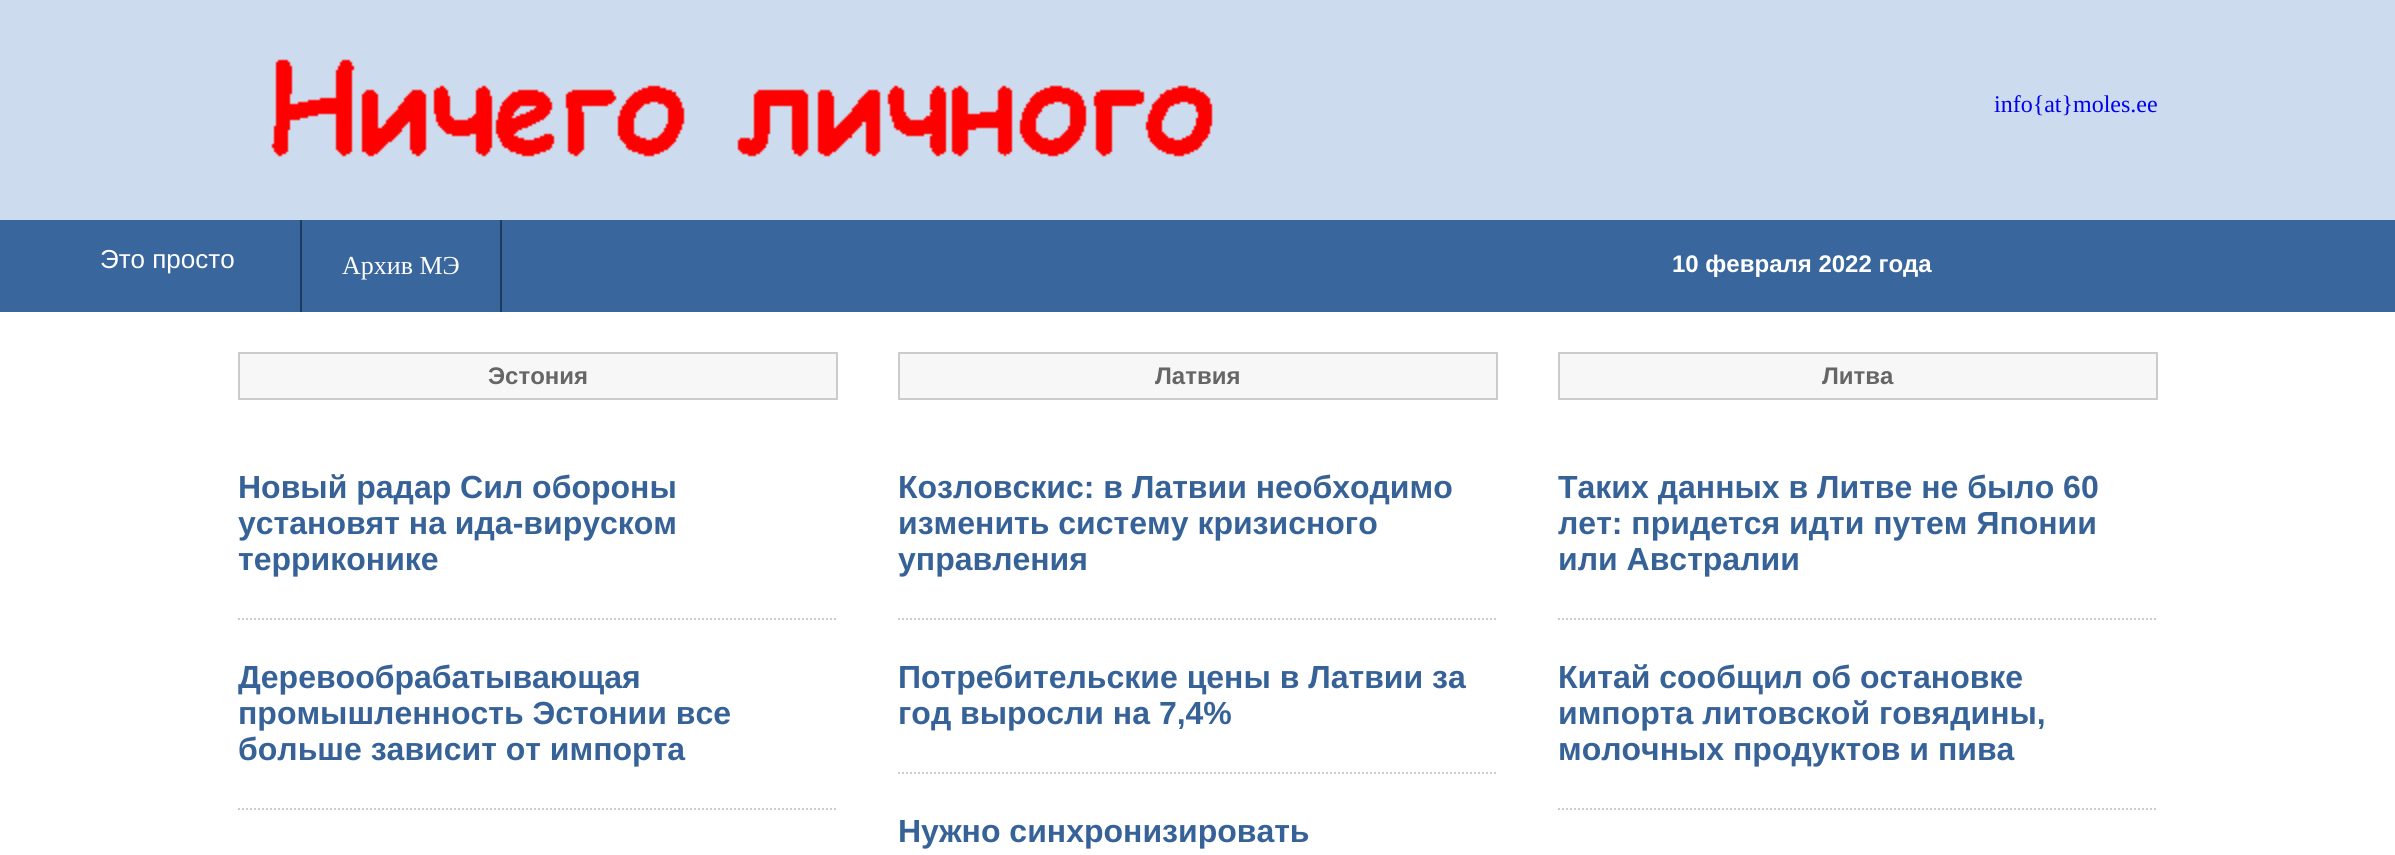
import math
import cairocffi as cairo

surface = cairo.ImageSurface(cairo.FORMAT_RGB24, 2395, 855)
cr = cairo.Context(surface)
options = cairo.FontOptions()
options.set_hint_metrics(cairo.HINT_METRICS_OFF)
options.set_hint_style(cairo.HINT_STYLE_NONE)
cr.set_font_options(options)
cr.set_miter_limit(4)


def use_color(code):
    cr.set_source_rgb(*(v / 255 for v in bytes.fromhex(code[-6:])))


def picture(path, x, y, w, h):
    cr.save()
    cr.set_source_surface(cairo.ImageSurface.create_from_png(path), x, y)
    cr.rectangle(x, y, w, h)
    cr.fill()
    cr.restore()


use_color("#ccdbee")
cr.paint()
picture("img1.png", 271, 59, 942, 98)
cr.select_font_face("Liberation Serif")
cr.set_font_size(24)
use_color("#0000ee")
cr.move_to(1994, 112)
cr.show_text("info{at}moles.ee")
use_color("#39669d")
cr.rectangle(0, 220, 2395, 92)
cr.fill()
cr.select_font_face("Liberation Sans")
cr.set_font_size(26)
use_color("#ffffff")
cr.move_to(100, 268)
cr.show_text("Это просто")
use_color("#1e3b5f")
cr.rectangle(500, 220, 2, 92)
cr.fill()
cr.rectangle(300, 220, 2, 92)
cr.fill()
cr.select_font_face("Liberation Serif")
use_color("#ffffff")
cr.move_to(342, 274)
cr.show_text("Архив МЭ")
cr.select_font_face("Liberation Sans", cairo.FONT_SLANT_NORMAL, cairo.FONT_WEIGHT_BOLD)
cr.set_font_size(24)
cr.move_to(1672, 272)
cr.show_text("10 февраля 2022 года")
cr.rectangle(0, 312, 2395, 543)
cr.fill()
use_color("#f7f7f7")
cr.rectangle(239, 353, 598, 46)
cr.fill_preserve()
use_color("#cccccc")
cr.stroke()
use_color("#666666")
cr.move_to(488, 384)
cr.show_text("Эстония")
cr.new_path()
cr.move_to(238, 619)
cr.line_to(838, 619)
use_color("#cccccc")
cr.set_dash([2, 2])
cr.stroke()
cr.set_font_size(32)
use_color("#366298")
cr.move_to(238, 498)
cr.show_text("Новый радар Сил обороны")
cr.move_to(238, 534)
cr.show_text("установят на ида-вируском")
cr.move_to(238, 570)
cr.show_text("терриконике")
cr.new_path()
cr.move_to(238, 809)
cr.line_to(838, 809)
use_color("#cccccc")
cr.stroke()
use_color("#366298")
cr.move_to(238, 688)
cr.show_text("Деревообрабатывающая")
cr.move_to(238, 724)
cr.show_text("промышленность Эстонии все")
cr.move_to(238, 760)
cr.show_text("больше зависит от импорта")
use_color("#f7f7f7")
cr.rectangle(899, 353, 598, 46)
cr.fill_preserve()
use_color("#cccccc")
cr.set_dash([])
cr.stroke()
cr.set_font_size(24)
use_color("#666666")
cr.move_to(1155, 384)
cr.show_text("Латвия")
cr.new_path()
cr.move_to(898, 619)
cr.line_to(1498, 619)
use_color("#cccccc")
cr.set_dash([2, 2])
cr.stroke()
cr.set_font_size(32)
use_color("#366298")
cr.move_to(898, 498)
cr.show_text("Козловскис: в Латвии необходимо")
cr.move_to(898, 534)
cr.show_text("изменить систему кризисного")
cr.move_to(898, 570)
cr.show_text("управления")
cr.new_path()
cr.move_to(898, 773)
cr.line_to(1498, 773)
use_color("#cccccc")
cr.stroke()
use_color("#366298")
cr.move_to(898, 688)
cr.show_text("Потребительские цены в Латвии за")
cr.move_to(898, 724)
cr.show_text("год выросли на 7,4%")
cr.move_to(898, 842)
cr.show_text("Нужно синхронизировать")
use_color("#f7f7f7")
cr.rectangle(1559, 353, 598, 46)
cr.fill_preserve()
use_color("#cccccc")
cr.set_dash([])
cr.stroke()
cr.set_font_size(24)
use_color("#666666")
cr.move_to(1822, 384)
cr.show_text("Литва")
cr.new_path()
cr.move_to(1558, 619)
cr.line_to(2158, 619)
use_color("#cccccc")
cr.set_dash([2, 2])
cr.stroke()
cr.set_font_size(32)
use_color("#366298")
cr.move_to(1558, 498)
cr.show_text("Таких данных в Литве не было 60")
cr.move_to(1558, 534)
cr.show_text("лет: придется идти путем Японии")
cr.move_to(1558, 570)
cr.show_text("или Австралии")
cr.new_path()
cr.move_to(1558, 809)
cr.line_to(2158, 809)
use_color("#cccccc")
cr.stroke()
use_color("#366298")
cr.move_to(1558, 688)
cr.show_text("Китай сообщил об остановке")
cr.move_to(1558, 724)
cr.show_text("импорта литовской говядины,")
cr.move_to(1558, 760)
cr.show_text("молочных продуктов и пива")
surface.write_to_png("result.png")
